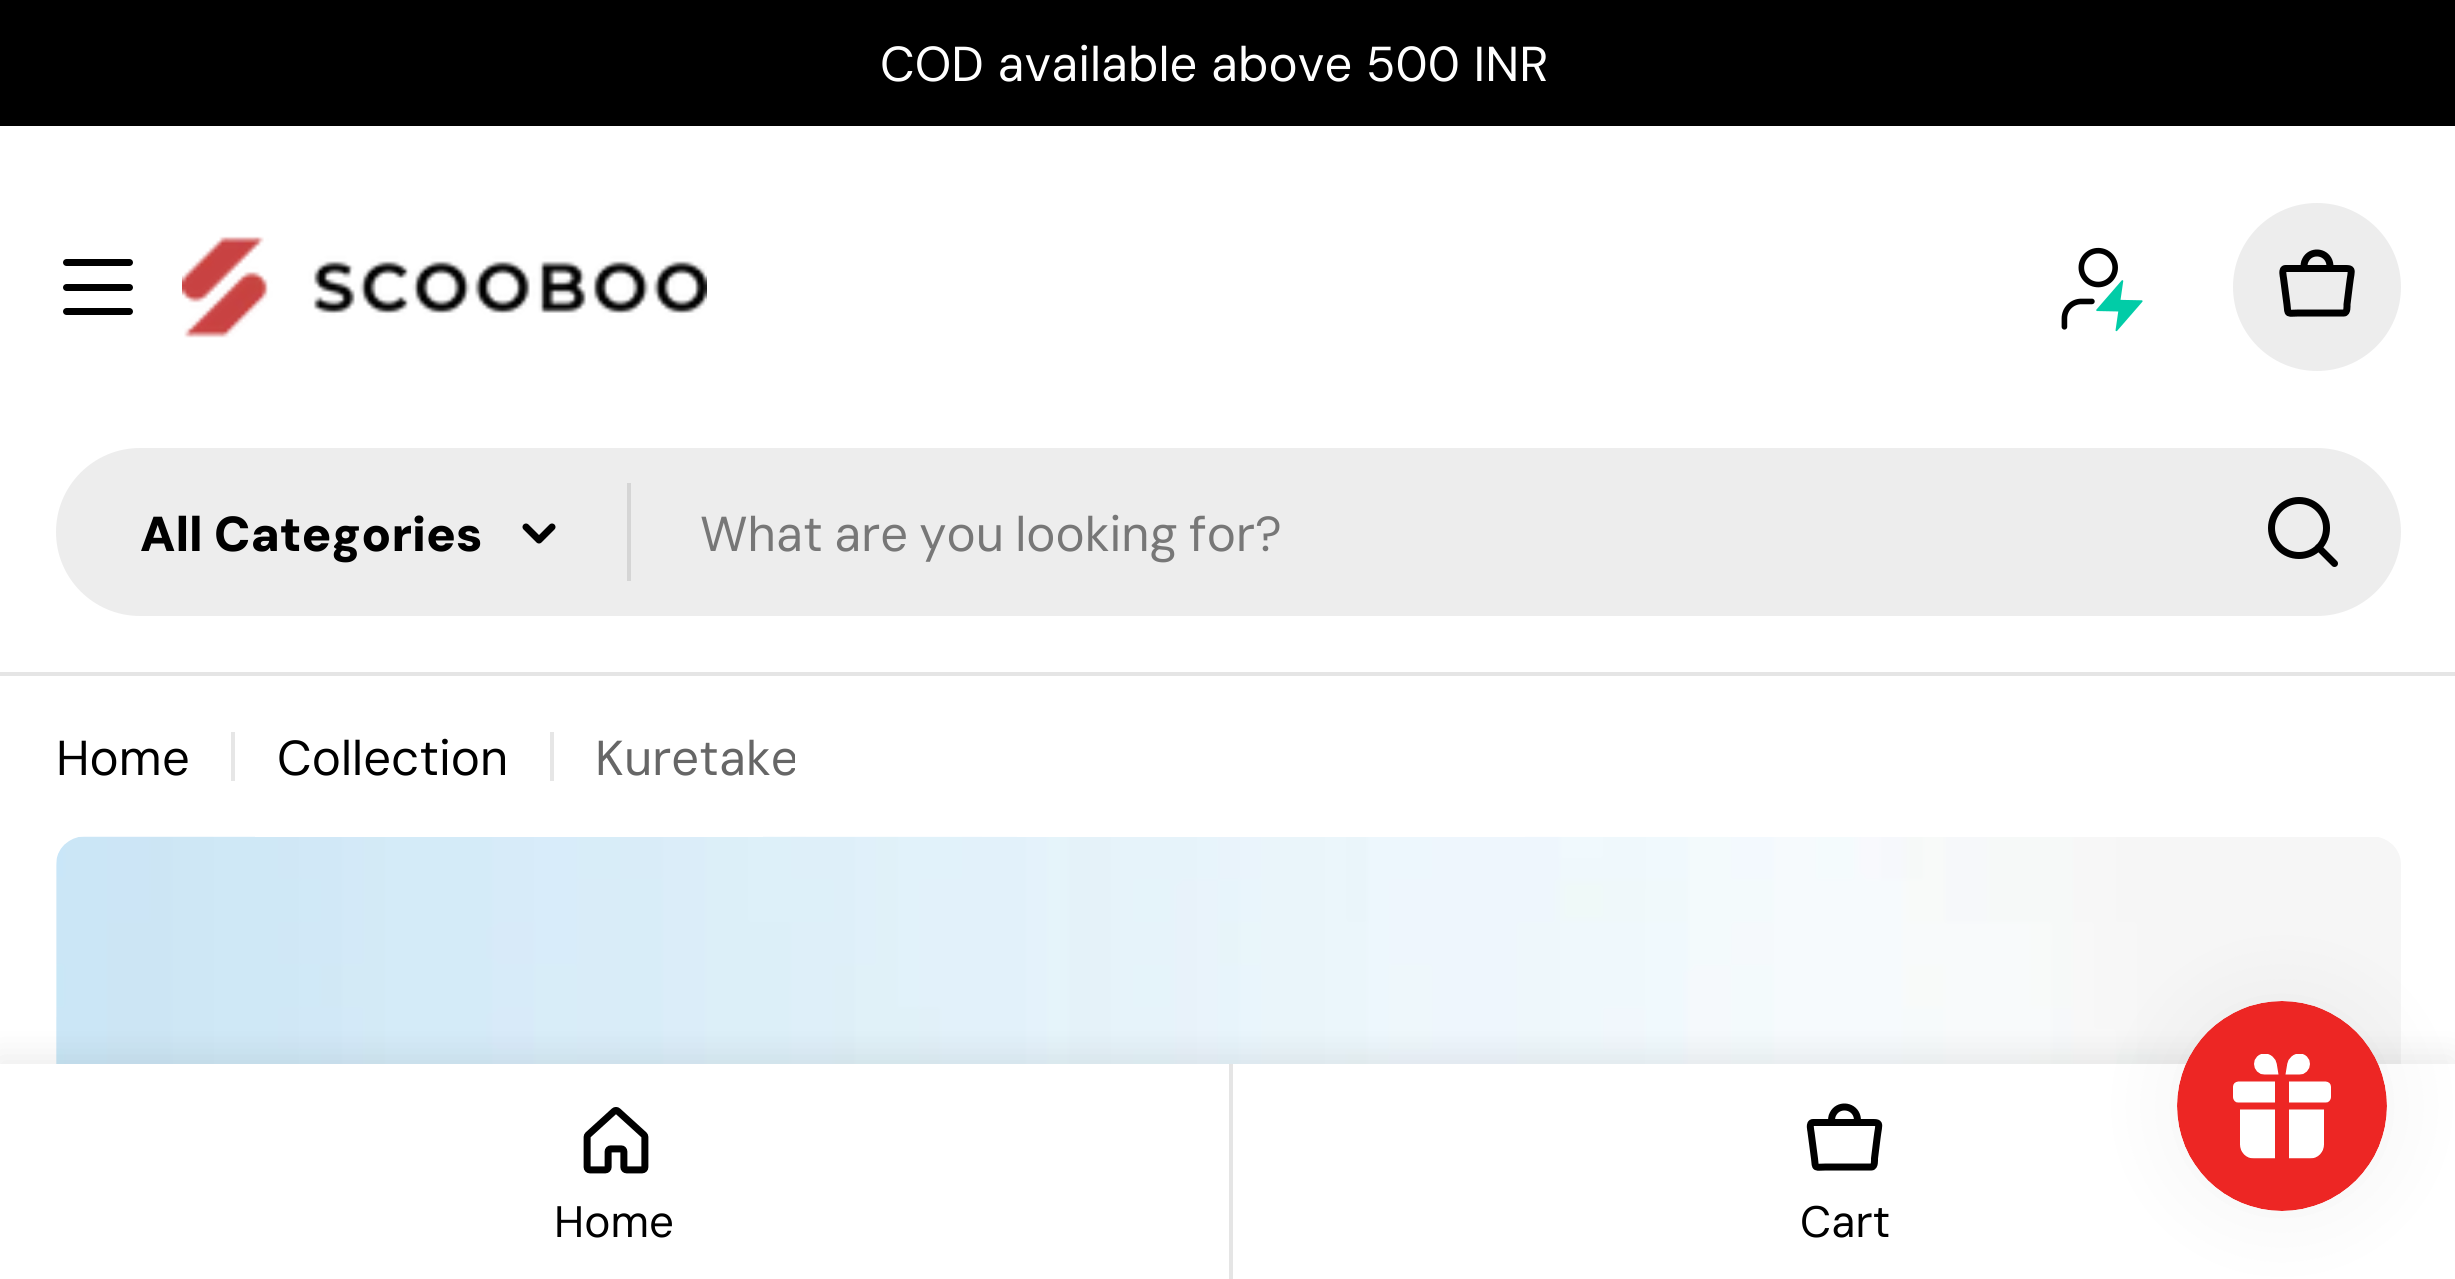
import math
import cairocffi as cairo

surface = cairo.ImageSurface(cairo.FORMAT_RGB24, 2455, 1279)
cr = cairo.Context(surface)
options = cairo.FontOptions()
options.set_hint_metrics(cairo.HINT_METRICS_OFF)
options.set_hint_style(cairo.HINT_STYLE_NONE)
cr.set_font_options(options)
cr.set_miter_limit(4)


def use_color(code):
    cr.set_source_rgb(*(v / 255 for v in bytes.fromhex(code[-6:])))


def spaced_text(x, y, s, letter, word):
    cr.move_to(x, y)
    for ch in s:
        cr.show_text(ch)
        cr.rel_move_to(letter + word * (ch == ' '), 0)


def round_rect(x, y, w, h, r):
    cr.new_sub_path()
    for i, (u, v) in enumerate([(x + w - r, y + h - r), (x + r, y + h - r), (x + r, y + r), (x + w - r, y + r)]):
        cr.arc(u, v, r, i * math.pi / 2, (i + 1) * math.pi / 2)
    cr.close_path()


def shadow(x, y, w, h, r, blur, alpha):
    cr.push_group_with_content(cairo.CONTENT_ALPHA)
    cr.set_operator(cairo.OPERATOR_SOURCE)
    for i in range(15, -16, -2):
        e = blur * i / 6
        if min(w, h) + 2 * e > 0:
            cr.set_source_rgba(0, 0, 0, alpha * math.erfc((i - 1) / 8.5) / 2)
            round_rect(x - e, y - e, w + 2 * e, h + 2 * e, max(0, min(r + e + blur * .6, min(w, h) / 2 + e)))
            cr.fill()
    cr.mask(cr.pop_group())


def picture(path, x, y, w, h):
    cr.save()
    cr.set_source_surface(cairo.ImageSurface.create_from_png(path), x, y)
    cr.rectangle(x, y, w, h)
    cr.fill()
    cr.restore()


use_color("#ffffff")
cr.paint()
use_color("#000000")
cr.rectangle(0, 0, 2455, 126)
cr.fill()
cr.select_font_face("DM Sans")
cr.set_font_size(49)
use_color("#ffffff")
spaced_text(880, 81, "COD available above 500 INR", 0, 0.5)
use_color("#000000")
round_rect(63, 284, 70, 7, 3.5)
cr.fill()
round_rect(63, 259, 70, 7, 3.5)
cr.fill()
round_rect(63, 308, 70, 7, 3.5)
cr.fill()
picture("img1.png", 182, 236, 525, 102)
picture("img2.png", 2061, 247, 82, 85)
use_color("#ededed")
cr.arc(2317, 287, 84, 0, 2 * math.pi)
cr.fill()
cr.new_path()
cr.move_to(2344, 313)
cr.line_to(2299, 313)
cr.curve_to(2287, 313, 2288, 315.5, 2287, 304.5)
cr.line_to(2283.5, 278)
cr.curve_to(2283.5, 277, 2281, 268.5, 2285.5, 268.5)
cr.line_to(2338, 268.5)
cr.curve_to(2355, 268.5, 2351.5, 267, 2349.5, 284.5)
cr.line_to(2347, 304.5)
cr.curve_to(2347, 306, 2347.5, 313, 2344, 313)
cr.close_path()
use_color("#000000")
cr.set_line_width(7)
cr.set_line_cap(cairo.LINE_CAP_ROUND)
cr.set_line_join(cairo.LINE_JOIN_ROUND)
cr.stroke()
cr.new_path()
cr.move_to(2304, 268.5)
cr.curve_to(2304, 265.5, 2304, 262.5, 2305.5, 260)
cr.curve_to(2310.5, 250, 2325, 251, 2329, 261)
cr.curve_to(2330, 263.5, 2330, 266, 2330, 268.5)
cr.stroke()
use_color("#ededed")
round_rect(56, 448, 2345, 168, 84)
cr.fill()
cr.select_font_face("DM Sans Black")
use_color("#000000")
cr.move_to(140, 551)
cr.show_text("All Categories")
cr.new_path()
cr.move_to(552, 527)
cr.line_to(539, 540)
cr.line_to(526, 527)
cr.stroke()
use_color("#d5d5d5")
cr.rectangle(627, 483, 4, 98)
cr.fill()
cr.select_font_face("DM Sans")
use_color("#777777")
spaced_text(700, 551, "What are you looking for?", 0, -2)
cr.new_path()
cr.move_to(2299, 555.5)
cr.curve_to(2314.5, 555.5, 2326.5, 543.5, 2326.5, 528)
cr.curve_to(2326.5, 513, 2314.5, 500.5, 2299, 500.5)
cr.curve_to(2284, 500.5, 2271.5, 513, 2271.5, 528)
cr.curve_to(2271.5, 543.5, 2284, 555.5, 2299, 555.5)
cr.close_path()
use_color("#000000")
cr.stroke()
cr.new_path()
cr.move_to(2318.5, 547.5)
cr.line_to(2334.5, 563.5)
cr.stroke()
use_color("#e5e5e5")
cr.rectangle(0, 672, 2455, 4)
cr.fill()
use_color("#000000")
cr.move_to(56, 775)
cr.show_text("Home")
use_color("#e6e6e6")
cr.rectangle(231, 732, 4, 49)
cr.fill()
use_color("#000000")
cr.move_to(277, 775)
cr.show_text("Collection")
use_color("#e6e6e6")
cr.rectangle(550, 732, 4, 49)
cr.fill()
cr.save()
cr.rectangle(595, 718, 200, 77)
cr.clip()
use_color("#666666")
cr.move_to(595, 775)
cr.show_text("Kuretake")
cr.restore()
picture("img3.png", 56, 836, 2345, 228)
use_color("#000000")
shadow(-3, 1057, 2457, 217, 0, 17.5, 0.08)
use_color("#ffffff")
cr.rectangle(0, 1064, 2455, 215)
cr.fill()
picture("img4.png", 583, 1107, 66, 67)
cr.set_font_size(44)
use_color("#000000")
cr.move_to(554, 1237)
cr.show_text("Home")
use_color("#e5e5e5")
cr.rectangle(1229, 1064, 4, 215)
cr.fill()
cr.new_path()
cr.move_to(1871.5, 1167)
cr.line_to(1826.5, 1167)
cr.curve_to(1814.5, 1167, 1815.5, 1169.5, 1814.5, 1158.5)
cr.line_to(1811, 1132)
cr.curve_to(1811, 1131, 1808.5, 1122.5, 1813, 1122.5)
cr.line_to(1865.5, 1122.5)
cr.curve_to(1882.5, 1122.5, 1879, 1121, 1877, 1138.5)
cr.line_to(1874.5, 1158.5)
cr.curve_to(1874.5, 1160, 1875, 1167, 1871.5, 1167)
cr.close_path()
use_color("#000000")
cr.stroke()
cr.new_path()
cr.move_to(1831.5, 1122.5)
cr.curve_to(1831.5, 1119.5, 1831.5, 1116.5, 1833, 1114)
cr.curve_to(1838, 1104, 1852.5, 1105, 1856.5, 1115)
cr.curve_to(1857.5, 1117.5, 1857.5, 1120, 1857.5, 1122.5)
cr.stroke()
cr.move_to(1800, 1237)
cr.show_text("Cart")
use_color("#000000")
shadow(2177, 1001, 210, 210, 105, 44, 0.05)
picture("img5.png", 2177, 1001, 210, 210)
surface.write_to_png("result.png")
